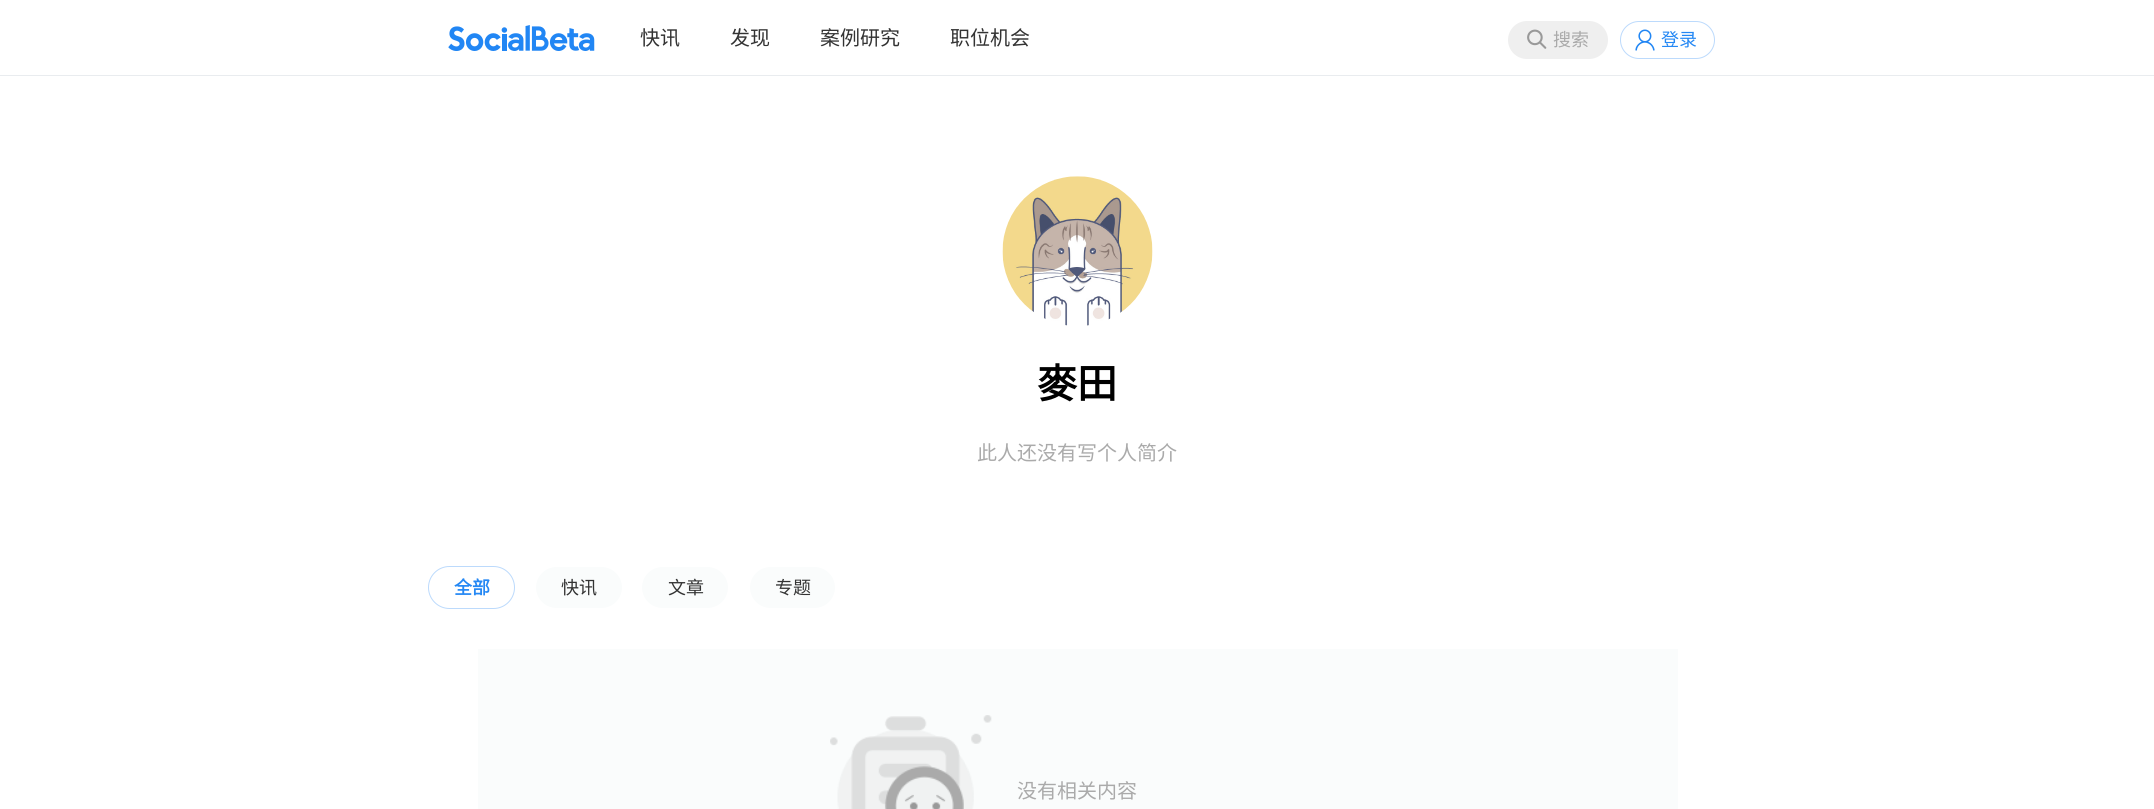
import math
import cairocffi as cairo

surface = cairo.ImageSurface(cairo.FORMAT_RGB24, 2154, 809)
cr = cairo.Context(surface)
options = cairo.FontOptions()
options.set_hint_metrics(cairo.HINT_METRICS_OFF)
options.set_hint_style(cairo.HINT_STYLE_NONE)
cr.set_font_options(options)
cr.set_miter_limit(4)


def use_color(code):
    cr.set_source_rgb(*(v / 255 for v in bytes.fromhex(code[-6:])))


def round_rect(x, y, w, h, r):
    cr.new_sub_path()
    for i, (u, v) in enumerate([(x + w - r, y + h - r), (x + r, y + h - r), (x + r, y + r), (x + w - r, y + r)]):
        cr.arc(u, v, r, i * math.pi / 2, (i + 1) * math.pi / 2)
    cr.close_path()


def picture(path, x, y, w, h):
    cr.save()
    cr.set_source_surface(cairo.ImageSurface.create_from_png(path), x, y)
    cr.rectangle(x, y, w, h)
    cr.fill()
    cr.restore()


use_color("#ffffff")
cr.paint()
use_color("#e9ecef")
cr.rectangle(0, 75, 2154, 1)
cr.fill()
picture("img1.png", 448, 25, 147, 26)
cr.select_font_face("Noto Sans CJK SC")
cr.set_font_size(20)
use_color("#333333")
cr.move_to(640, 45)
cr.show_text("快讯")
cr.move_to(730, 45)
cr.show_text("发现")
cr.move_to(820, 45)
cr.show_text("案例研究")
cr.move_to(950, 45)
cr.show_text("职位机会")
use_color("#efefef")
round_rect(1508, 21, 100, 38, 19)
cr.fill()
picture("img2.png", 1527, 29, 20, 20)
cr.set_font_size(18)
use_color("#aaaaaa")
cr.move_to(1553, 46)
cr.show_text("搜索")
picture("img3.png", 1635, 29, 20, 22)
round_rect(1620.5, 21.5, 94, 37, 18.5)
use_color("#bcdafc")
cr.set_line_width(1)
cr.stroke()
use_color("#2588f4")
cr.move_to(1661, 46)
cr.show_text("登录")
picture("img4.png", 1002, 176, 151, 150)
cr.select_font_face("Noto Sans CJK SC", cairo.FONT_SLANT_NORMAL, cairo.FONT_WEIGHT_BOLD)
cr.set_font_size(40)
use_color("#000000")
cr.move_to(1037, 398)
cr.show_text("麥田")
cr.select_font_face("Noto Sans CJK SC")
cr.set_font_size(20)
use_color("#aaaaaa")
cr.move_to(977, 460)
cr.show_text("此人还没有写个人简介")
round_rect(428.5, 566.5, 86, 42, 21)
use_color("#bcdafc")
cr.stroke()
cr.select_font_face("Noto Sans CJK SC", cairo.FONT_SLANT_NORMAL, cairo.FONT_WEIGHT_BOLD)
cr.set_font_size(18)
use_color("#2588f4")
cr.move_to(454, 594)
cr.show_text("全部")
use_color("#fafcfc")
round_rect(535.5, 566.5, 87, 42, 21)
cr.fill_preserve()
use_color("#ffffff")
cr.stroke()
cr.select_font_face("Noto Sans CJK SC")
use_color("#333333")
cr.move_to(561, 594)
cr.show_text("快讯")
use_color("#fafcfc")
round_rect(641.5, 566.5, 87, 42, 21)
cr.fill_preserve()
use_color("#ffffff")
cr.stroke()
use_color("#333333")
cr.move_to(668, 594)
cr.show_text("文章")
use_color("#fafcfc")
round_rect(749.5, 566.5, 86, 42, 21)
cr.fill_preserve()
use_color("#ffffff")
cr.stroke()
use_color("#333333")
cr.move_to(775, 594)
cr.show_text("专题")
use_color("#fafcfc")
cr.rectangle(478, 649, 1200, 160)
cr.fill()
picture("img5.png", 830, 715, 162, 94)
cr.set_font_size(20)
use_color("#aaaaaa")
cr.move_to(1017, 798)
cr.show_text("没有相关内容")
surface.write_to_png("result.png")
